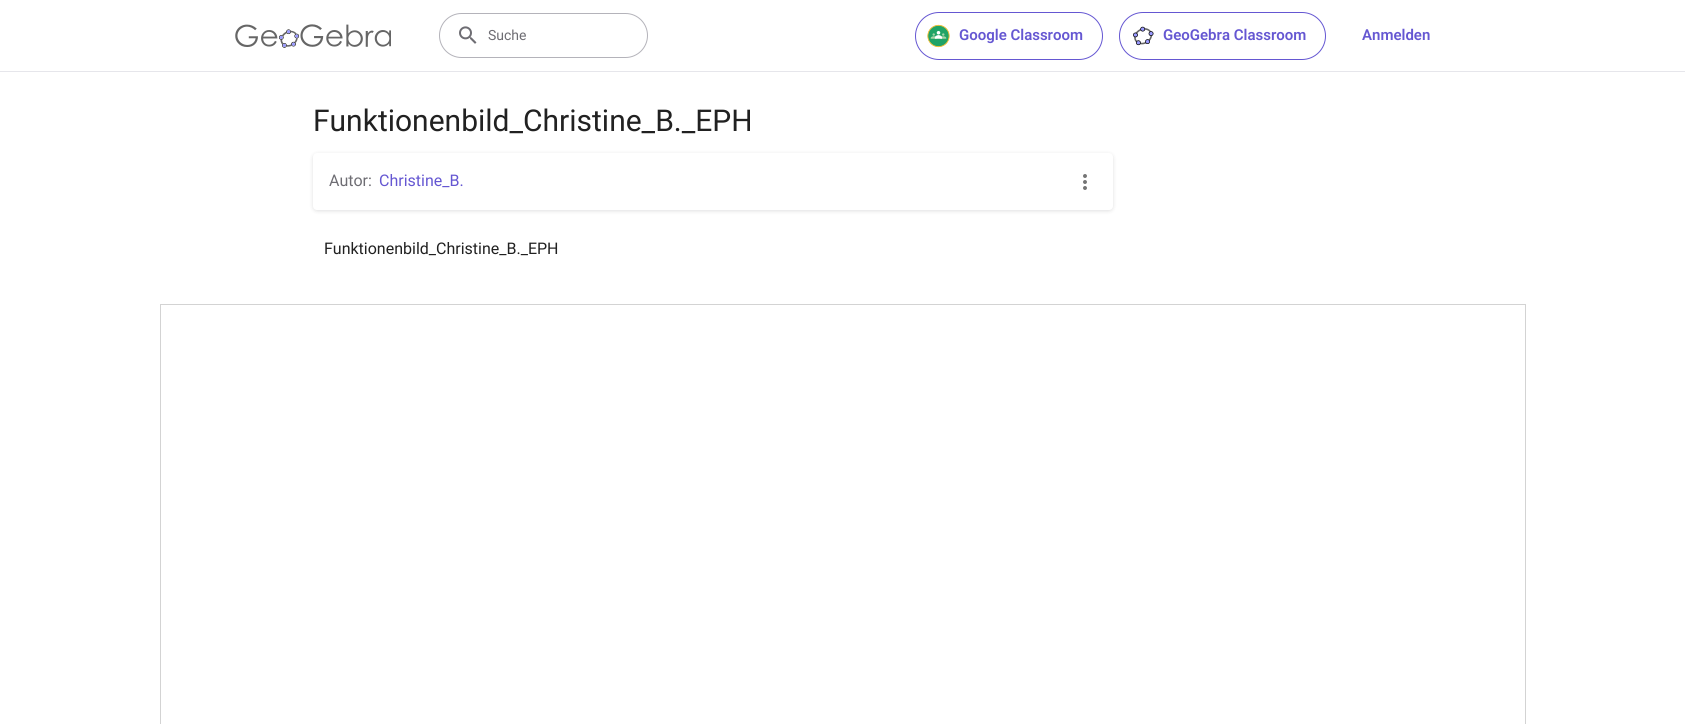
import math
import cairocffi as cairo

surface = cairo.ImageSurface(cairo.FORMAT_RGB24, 1685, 724)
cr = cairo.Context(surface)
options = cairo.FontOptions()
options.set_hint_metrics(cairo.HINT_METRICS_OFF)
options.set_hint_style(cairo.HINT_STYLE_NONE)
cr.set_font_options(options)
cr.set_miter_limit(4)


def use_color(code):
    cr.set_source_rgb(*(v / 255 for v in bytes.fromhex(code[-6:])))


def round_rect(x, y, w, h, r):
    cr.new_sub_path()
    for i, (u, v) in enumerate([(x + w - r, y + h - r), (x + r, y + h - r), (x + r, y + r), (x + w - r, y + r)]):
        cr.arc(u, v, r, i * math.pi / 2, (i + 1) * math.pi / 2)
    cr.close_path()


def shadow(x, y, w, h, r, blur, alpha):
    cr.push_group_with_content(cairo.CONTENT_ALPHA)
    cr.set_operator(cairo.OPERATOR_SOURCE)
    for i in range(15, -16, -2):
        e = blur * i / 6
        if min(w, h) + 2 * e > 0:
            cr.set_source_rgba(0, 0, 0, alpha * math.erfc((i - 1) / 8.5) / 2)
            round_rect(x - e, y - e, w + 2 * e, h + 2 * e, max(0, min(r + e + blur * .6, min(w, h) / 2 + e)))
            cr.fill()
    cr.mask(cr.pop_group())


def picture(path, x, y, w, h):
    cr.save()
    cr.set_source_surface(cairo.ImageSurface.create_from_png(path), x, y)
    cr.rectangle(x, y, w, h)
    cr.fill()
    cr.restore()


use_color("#ffffff")
cr.paint()
use_color("#e6e6eb")
cr.rectangle(0, 71, 1685, 1)
cr.fill()
picture("img1.png", 235, 24, 156, 24)
round_rect(439.5, 13.5, 208, 44, 22)
use_color("#b4b3ba")
cr.set_line_width(1)
cr.stroke()
picture("img2.png", 459, 26, 18, 18)
cr.select_font_face("Roboto")
cr.set_font_size(14)
use_color("#6e6d73")
cr.move_to(488, 40)
cr.show_text("Suche")
round_rect(915.5, 12.5, 187, 47, 23.5)
use_color("#6557d2")
cr.stroke()
picture("img3.png", 927, 24, 23, 24)
cr.select_font_face("Roboto SemiBold")
cr.set_font_size(15)
cr.move_to(959, 40)
cr.show_text("Google Classroom")
round_rect(1119.5, 12.5, 206, 47, 23.5)
cr.stroke()
picture("img4.png", 1133, 26, 21, 20)
cr.move_to(1163, 40)
cr.show_text("GeoGebra Classroom")
cr.move_to(1362, 40)
cr.show_text("Anmelden")
cr.select_font_face("Roboto")
cr.set_font_size(30)
use_color("#212121")
cr.move_to(313, 131)
cr.show_text("Funktionenbild_Christine_B._EPH")
use_color("#1c1c1f")
shadow(313, 154, 800, 57, 4, 2, 0.14)
use_color("#ffffff")
round_rect(313, 153, 800, 57, 4)
cr.fill()
cr.set_font_size(16)
use_color("#6e6d73")
cr.move_to(329, 186)
cr.show_text("Autor:")
use_color("#6557d2")
cr.move_to(379, 186)
cr.show_text("Christine_B.")
picture("img5.png", 1083, 174, 4, 16)
use_color("#212121")
cr.move_to(324, 254)
cr.show_text("Funktionenbild_Christine_B._EPH")
cr.rectangle(160.5, 304.5, 1365, 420)
use_color("#d3d3d3")
cr.stroke()
surface.write_to_png("result.png")
